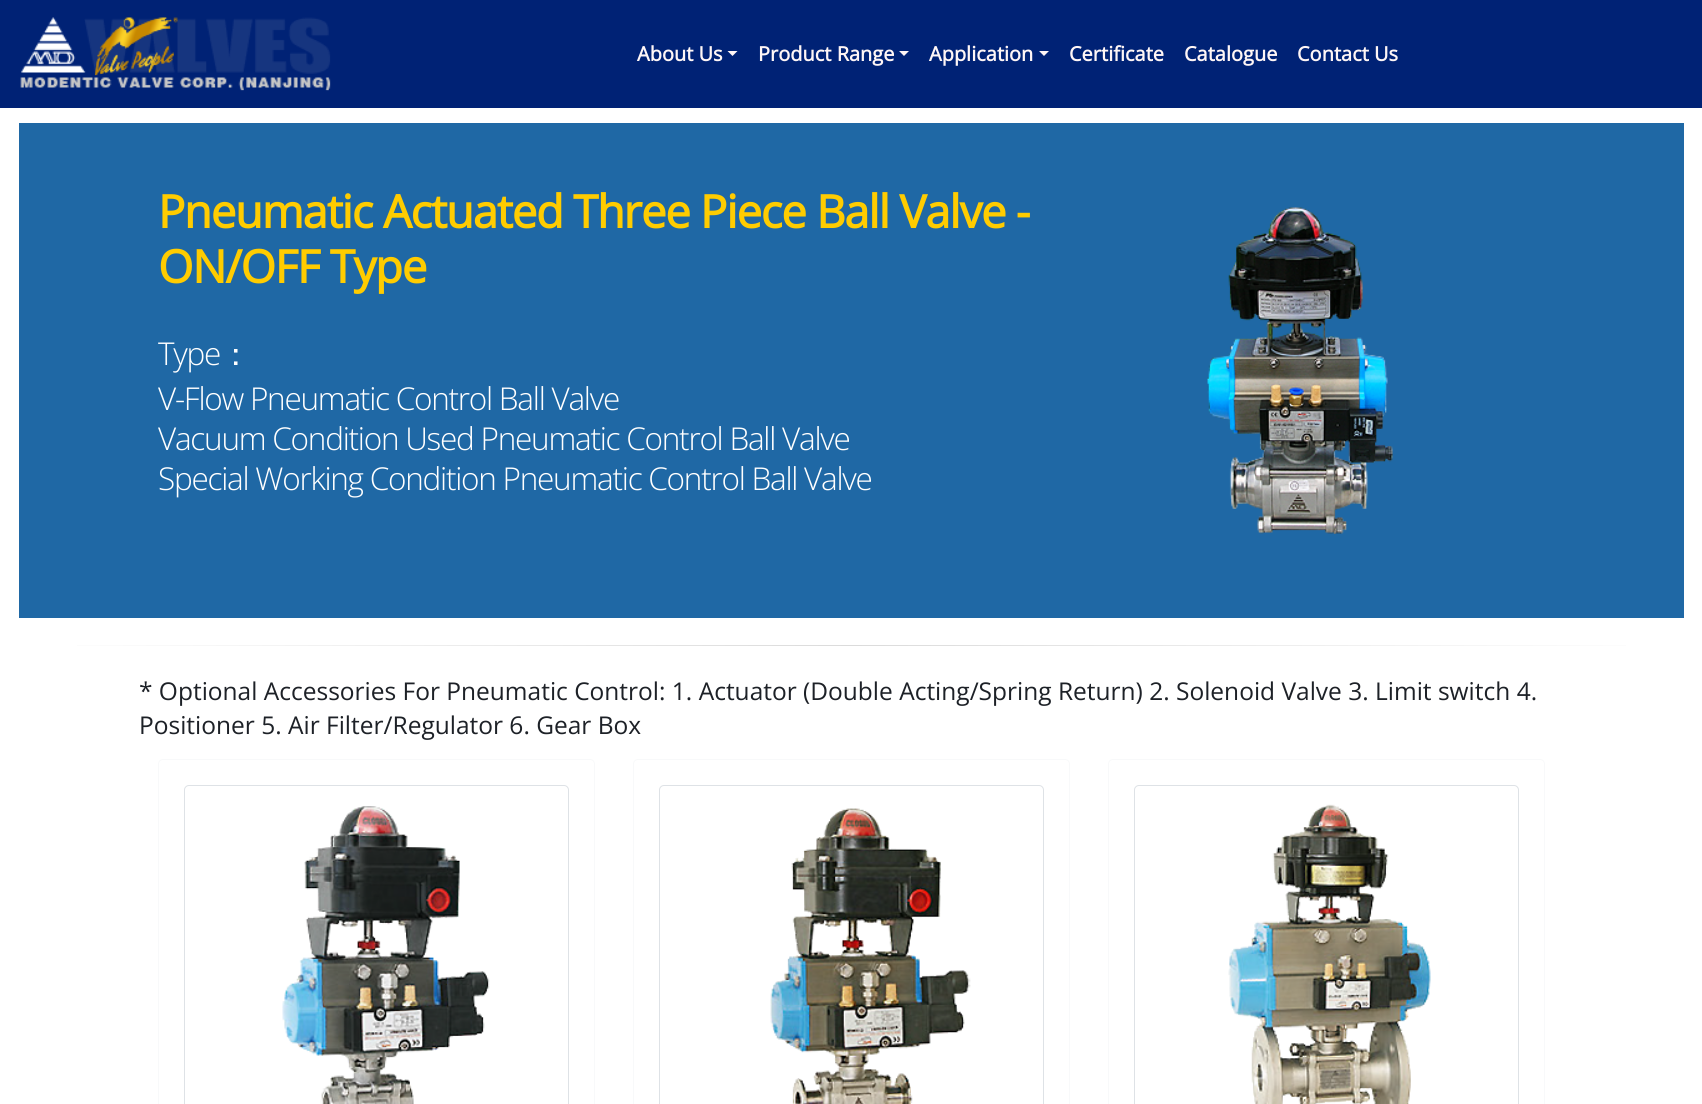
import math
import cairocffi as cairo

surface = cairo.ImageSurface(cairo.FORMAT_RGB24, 1702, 1104)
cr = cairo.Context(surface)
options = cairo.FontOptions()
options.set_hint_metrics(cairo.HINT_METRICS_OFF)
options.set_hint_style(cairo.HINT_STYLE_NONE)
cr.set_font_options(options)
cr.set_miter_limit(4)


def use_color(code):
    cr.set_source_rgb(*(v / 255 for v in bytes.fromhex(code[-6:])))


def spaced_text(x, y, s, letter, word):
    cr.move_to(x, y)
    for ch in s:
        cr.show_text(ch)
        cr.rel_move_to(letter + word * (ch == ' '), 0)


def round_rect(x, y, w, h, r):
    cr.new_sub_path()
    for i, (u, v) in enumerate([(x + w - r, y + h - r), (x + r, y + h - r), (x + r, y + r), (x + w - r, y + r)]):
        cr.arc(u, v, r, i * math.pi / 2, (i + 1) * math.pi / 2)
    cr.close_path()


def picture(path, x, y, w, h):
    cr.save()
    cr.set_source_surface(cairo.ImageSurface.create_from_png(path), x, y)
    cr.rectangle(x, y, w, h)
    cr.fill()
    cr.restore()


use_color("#ffffff")
cr.paint()
use_color("#002275")
cr.rectangle(0, 0, 1702, 108)
cr.fill()
picture("img1.png", 20, 17, 311, 74)
cr.select_font_face("Open Sans", cairo.FONT_SLANT_NORMAL, cairo.FONT_WEIGHT_BOLD)
cr.set_font_size(20)
use_color("#fff6f6")
cr.move_to(637, 61)
cr.show_text("About Us")
cr.new_path()
cr.move_to(727.5, 51)
cr.line_to(737.5, 51)
cr.line_to(732.5, 56)
cr.close_path()
cr.fill()
cr.move_to(758, 61)
cr.show_text("Product Range")
cr.new_path()
cr.move_to(899, 51)
cr.line_to(909, 51)
cr.line_to(904, 56)
cr.close_path()
cr.fill()
cr.move_to(929, 61)
cr.show_text("Application")
cr.new_path()
cr.move_to(1039, 51)
cr.line_to(1049, 51)
cr.line_to(1044, 56)
cr.close_path()
cr.fill()
cr.move_to(1069, 61)
cr.show_text("Certificate")
cr.move_to(1184, 61)
cr.show_text("Catalogue")
cr.move_to(1297, 61)
cr.show_text("Contact Us")
use_color("#1f68a5")
cr.rectangle(19, 123, 1665, 495)
cr.fill()
cr.set_font_size(45.5)
use_color("#ffcc00")
spaced_text(158, 228, "Pneumatic Actuated Three Piece Ball Valve -", -1.25, 0)
spaced_text(158, 283, "ON/OFF Type", -1.25, 0)
cr.select_font_face("Open Sans Light")
cr.set_font_size(31.5)
use_color("#ffffff")
spaced_text(158, 365, "Type", -1.25, 0)
cr.select_font_face("WenQuanYi Zen Hei Medium")
spaced_text(220, 365, "：", -1.25, 0)
cr.select_font_face("Open Sans Light")
spaced_text(158, 410, "V-Flow Pneumatic Control Ball Valve", -1.25, 0)
spaced_text(158, 450, "Vacuum Condition Used Pneumatic Control Ball Valve", -1.25, 0)
spaced_text(158, 490, "Special Working Condition Pneumatic Control Ball Valve", -1.25, 0)
picture("img2.png", 1207, 207, 186, 327)
gradient = cairo.LinearGradient(1684, 646, 19, 646)
gradient.add_color_stop_rgba(0, 1, 1, 1, 1)
gradient.add_color_stop_rgba(0.5, 0.859, 0.859, 0.859, 1)
gradient.add_color_stop_rgba(1, 1, 1, 1, 1)
cr.set_source(gradient)
cr.rectangle(77, 645, 1549, 1)
cr.fill()
cr.select_font_face("Open Sans")
cr.set_font_size(24.5)
use_color("#1d2127")
cr.move_to(139, 700)
cr.show_text("* Optional Accessories For Pneumatic Control: 1. Actuator (Double Acting/Spring Return) 2. Solenoid Valve 3. Limit switch 4.")
cr.move_to(139, 734)
cr.show_text("Positioner 5. Air Filter/Regulator 6. Gear Box")
round_rect(158.5, 759.5, 436, 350, 4.5)
use_color("#f8f9fa")
cr.set_line_width(1)
cr.stroke()
round_rect(184.5, 785.5, 384, 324, 4.5)
use_color("#dee2e6")
cr.stroke()
picture("img3.png", 282, 806, 208, 298)
round_rect(633.5, 759.5, 436, 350, 4.5)
use_color("#f8f9fa")
cr.stroke()
round_rect(659.5, 785.5, 384, 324, 4.5)
use_color("#dee2e6")
cr.stroke()
picture("img4.png", 770, 808, 201, 296)
round_rect(1108.5, 759.5, 436, 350, 4.5)
use_color("#f8f9fa")
cr.stroke()
round_rect(1134.5, 785.5, 384, 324, 4.5)
use_color("#dee2e6")
cr.stroke()
picture("img5.png", 1228, 804, 203, 300)
surface.write_to_png("result.png")
